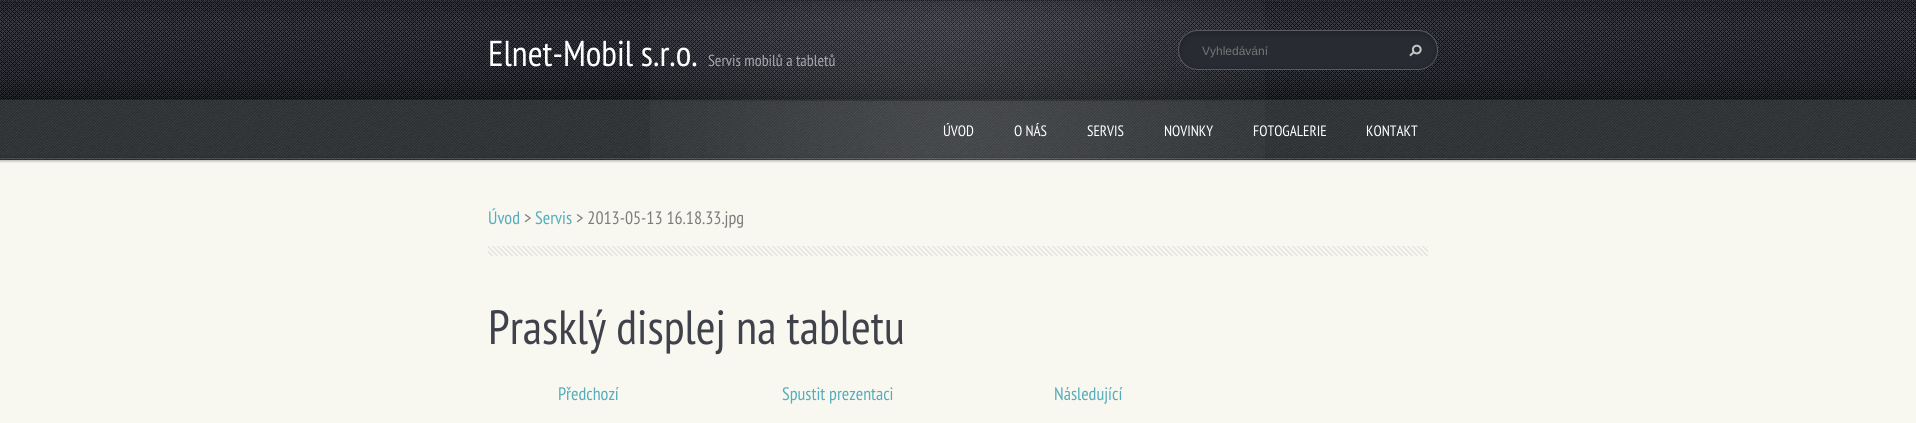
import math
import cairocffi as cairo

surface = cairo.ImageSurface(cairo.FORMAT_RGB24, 1916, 423)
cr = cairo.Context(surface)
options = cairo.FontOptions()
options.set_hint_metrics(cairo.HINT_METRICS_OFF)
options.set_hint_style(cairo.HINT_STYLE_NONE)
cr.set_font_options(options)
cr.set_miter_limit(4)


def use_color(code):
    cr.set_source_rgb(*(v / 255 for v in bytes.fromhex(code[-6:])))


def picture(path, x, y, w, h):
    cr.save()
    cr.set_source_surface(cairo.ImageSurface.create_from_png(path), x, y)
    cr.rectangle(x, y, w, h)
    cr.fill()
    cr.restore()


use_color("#ffffff")
cr.paint()
picture("img1.png", 0, 100, 1916, 60)
picture("img2.png", 0, 0, 1916, 100)
picture("img3.png", 650, 1, 615, 99)
cr.select_font_face("PT Sans Narrow")
cr.set_font_size(36)
use_color("#ffffff")
cr.move_to(488, 66)
cr.show_text("Elnet-Mobil s.r.o.")
cr.set_font_size(16)
use_color("#a7a8ab")
cr.move_to(708, 66)
cr.show_text("Servis mobilů a tabletů")
picture("img4.png", 1178, 30, 260, 40)
cr.select_font_face("Liberation Sans")
cr.set_font_size(12)
use_color("#757575")
cr.move_to(1202, 55)
cr.show_text("Vyhledávání")
picture("img5.png", 1409, 44, 13, 13)
picture("img6.png", 0, 100, 1916, 60)
picture("img7.png", 650, 101, 615, 59)
cr.select_font_face("PT Sans Narrow")
cr.set_font_size(15)
use_color("#ffffff")
cr.move_to(943, 136)
cr.show_text("ÚVOD")
cr.move_to(1014, 136)
cr.show_text("O NÁS")
cr.move_to(1087, 136)
cr.show_text("SERVIS")
cr.move_to(1164, 136)
cr.show_text("NOVINKY")
cr.move_to(1253, 136)
cr.show_text("FOTOGALERIE")
cr.move_to(1366, 136)
cr.show_text("KONTAKT")
use_color("#f8f7f0")
cr.rectangle(0, 160, 1916, 263)
cr.fill()
picture("img8.png", 0, 160, 1916, 3)
picture("img9.png", 488, 246, 940, 10)
cr.set_font_size(18)
use_color("#52adbc")
cr.move_to(488, 224)
cr.show_text("Úvod")
use_color("#7c7c7c")
cr.move_to(524, 224)
cr.show_text(">")
use_color("#52adbc")
cr.move_to(535, 224)
cr.show_text("Servis")
use_color("#7c7c7c")
cr.move_to(576, 224)
cr.show_text("> 2013-05-13 16.18.33.jpg")
cr.set_font_size(48)
use_color("#3f424a")
cr.move_to(488, 344)
cr.show_text("Prasklý displej na tabletu")
cr.set_font_size(18)
use_color("#52adbc")
cr.move_to(558, 400)
cr.show_text("Předchozí")
cr.move_to(782, 400)
cr.show_text("Spustit prezentaci")
cr.move_to(1054, 400)
cr.show_text("Následující")
surface.write_to_png("result.png")
